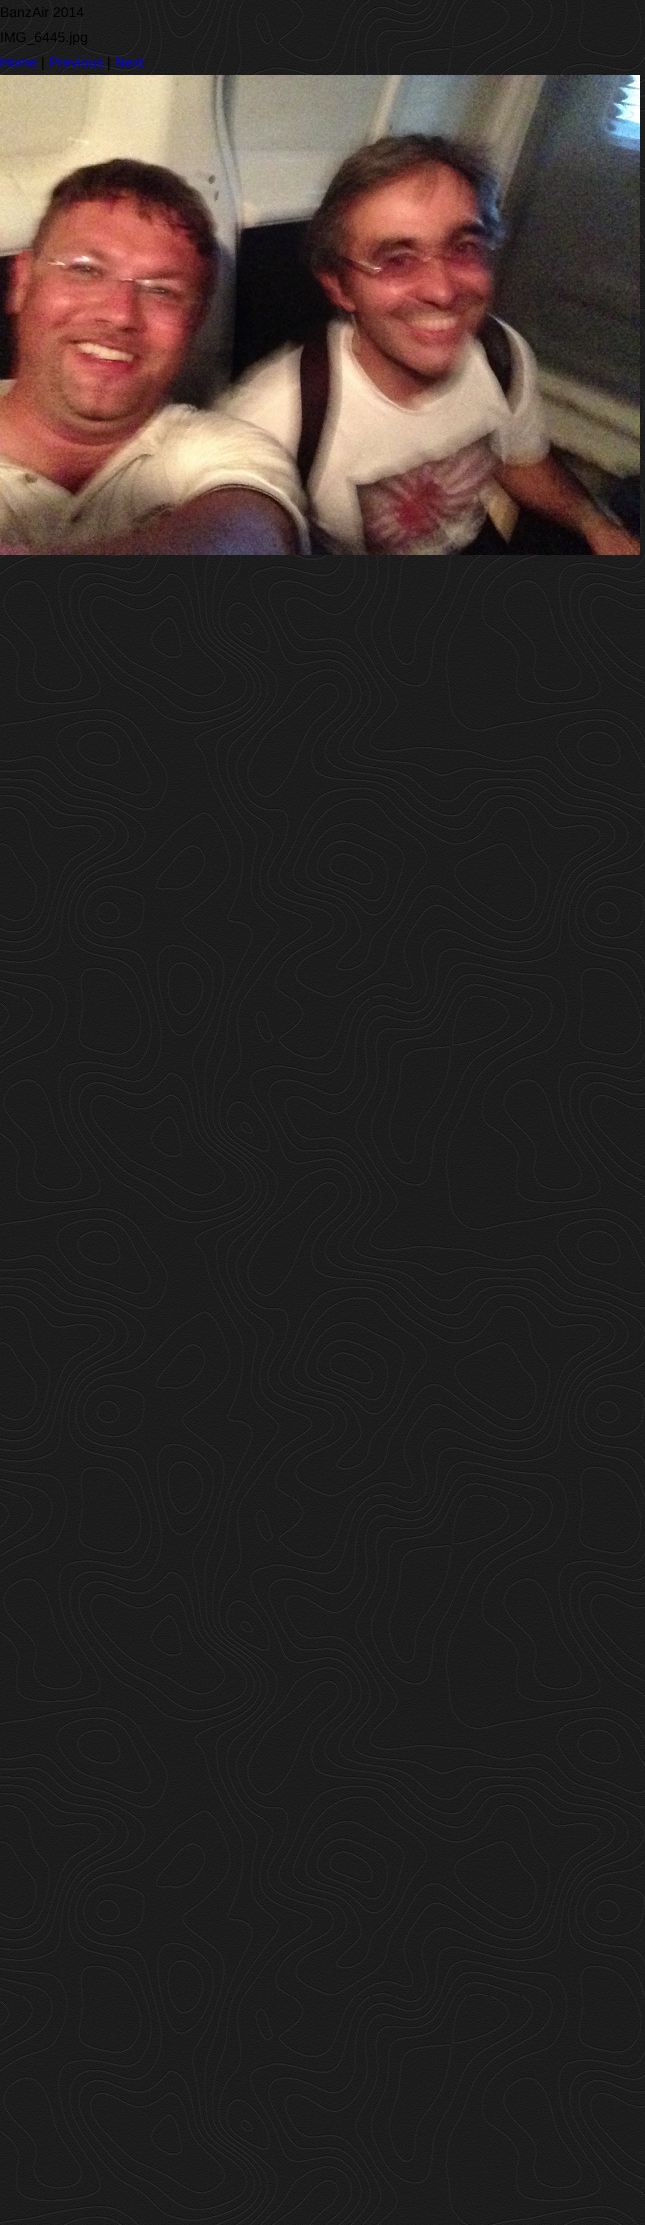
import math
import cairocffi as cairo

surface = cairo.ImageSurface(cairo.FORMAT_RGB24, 645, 2225)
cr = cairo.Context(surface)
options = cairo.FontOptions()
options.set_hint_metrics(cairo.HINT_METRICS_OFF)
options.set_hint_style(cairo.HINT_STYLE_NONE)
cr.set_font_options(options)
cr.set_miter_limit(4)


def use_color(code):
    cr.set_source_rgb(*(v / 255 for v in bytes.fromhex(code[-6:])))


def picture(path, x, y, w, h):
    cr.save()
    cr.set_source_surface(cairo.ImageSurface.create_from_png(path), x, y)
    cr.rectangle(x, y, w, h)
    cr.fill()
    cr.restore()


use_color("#ffffff")
cr.paint()
picture("img1.png", 0, 0, 645, 2225)
cr.select_font_face("Liberation Sans")
cr.set_font_size(14)
use_color("#000000")
cr.move_to(0, 17)
cr.show_text("BanzAir 2014")
cr.move_to(0, 42)
cr.show_text("IMG_6445.jpg")
use_color("#0000ee")
cr.move_to(0, 67)
cr.show_text("Home")
use_color("#000000")
cr.move_to(41, 67)
cr.show_text("|")
use_color("#0000ee")
cr.move_to(49, 67)
cr.show_text("Previous")
use_color("#000000")
cr.move_to(107, 67)
cr.show_text("|")
use_color("#0000ee")
cr.move_to(115, 67)
cr.show_text("Next")
picture("img2.png", 0, 75, 640, 480)
surface.write_to_png("result.png")
